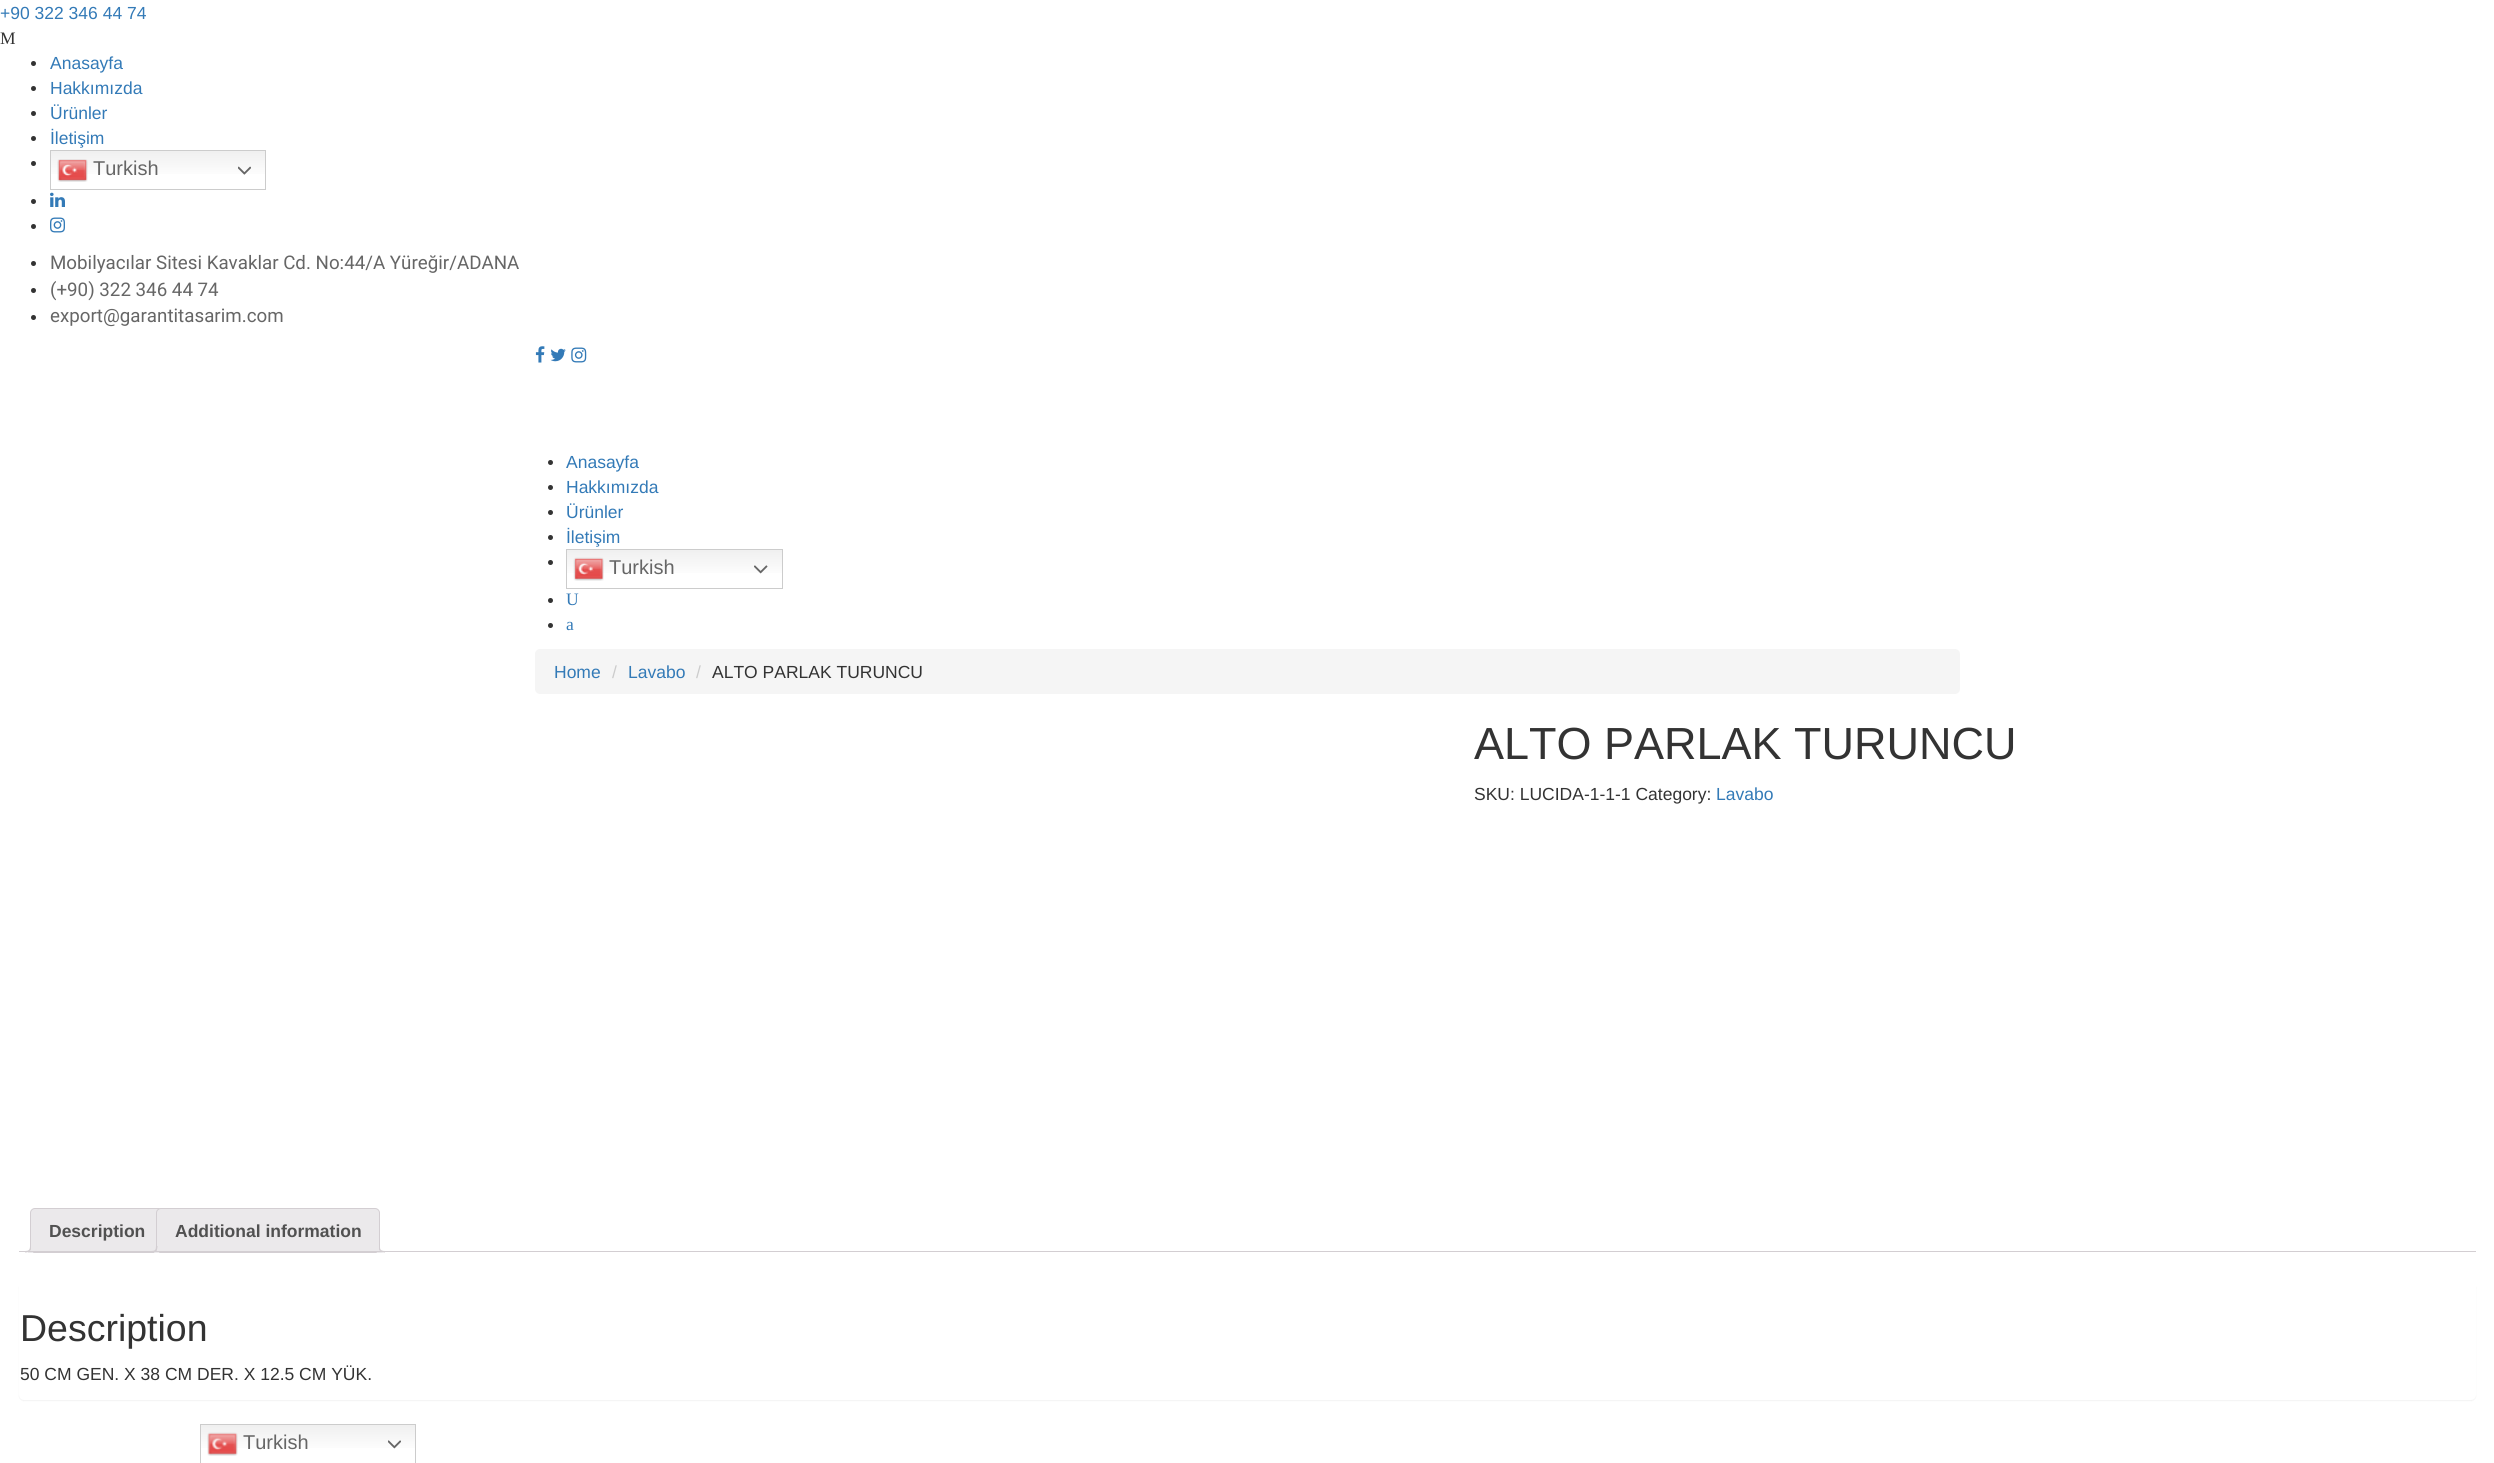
import math
import cairocffi as cairo

surface = cairo.ImageSurface(cairo.FORMAT_RGB24, 2494, 1463)
cr = cairo.Context(surface)
options = cairo.FontOptions()
options.set_hint_metrics(cairo.HINT_METRICS_OFF)
options.set_hint_style(cairo.HINT_STYLE_NONE)
cr.set_font_options(options)
cr.set_miter_limit(4)


def use_color(code):
    cr.set_source_rgb(*(v / 255 for v in bytes.fromhex(code[-6:])))


def round_rect(x, y, w, h, r):
    cr.new_sub_path()
    for i, (u, v) in enumerate([(x + w - r, y + h - r), (x + r, y + h - r), (x + r, y + r), (x + w - r, y + r)]):
        cr.arc(u, v, r, i * math.pi / 2, (i + 1) * math.pi / 2)
    cr.close_path()


def shadow(x, y, w, h, r, blur, alpha):
    cr.push_group_with_content(cairo.CONTENT_ALPHA)
    cr.set_operator(cairo.OPERATOR_SOURCE)
    for i in range(15, -16, -2):
        e = blur * i / 6
        if min(w, h) + 2 * e > 0:
            cr.set_source_rgba(0, 0, 0, alpha * math.erfc((i - 1) / 8.5) / 2)
            round_rect(x - e, y - e, w + 2 * e, h + 2 * e, max(0, min(r + e + blur * .6, min(w, h) / 2 + e)))
            cr.fill()
    cr.mask(cr.pop_group())


def picture(path, x, y, w, h):
    cr.save()
    cr.set_source_surface(cairo.ImageSurface.create_from_png(path), x, y)
    cr.rectangle(x, y, w, h)
    cr.fill()
    cr.restore()


use_color("#ffffff")
cr.paint()
cr.select_font_face("Liberation Sans")
cr.set_font_size(17.5)
use_color("#337ab7")
cr.move_to(0, 19)
cr.show_text("+90 322 346 44 74")
cr.select_font_face("Liberation Serif")
use_color("#333333")
cr.move_to(0, 44)
cr.show_text("M")
cr.new_path()
cr.arc(33.5, 63.5, 2.5, 0, 2 * math.pi)
cr.fill()
cr.select_font_face("Liberation Sans")
use_color("#337ab7")
cr.move_to(50, 69)
cr.show_text("Anasayfa")
use_color("#333333")
cr.new_path()
cr.arc(33.5, 88.5, 2.5, 0, 2 * math.pi)
cr.fill()
use_color("#337ab7")
cr.move_to(50, 94)
cr.show_text("Hakkımızda")
use_color("#333333")
cr.new_path()
cr.arc(33.5, 113.5, 2.5, 0, 2 * math.pi)
cr.fill()
use_color("#337ab7")
cr.move_to(50, 119)
cr.show_text("Ürünler")
use_color("#333333")
cr.new_path()
cr.arc(33.5, 138.5, 2.5, 0, 2 * math.pi)
cr.fill()
use_color("#337ab7")
cr.move_to(50, 144)
cr.show_text("İletişim")
use_color("#333333")
cr.new_path()
cr.arc(33.5, 163.5, 2.5, 0, 2 * math.pi)
cr.fill()
gradient = cairo.LinearGradient(158, 150, 158, 190)
gradient.add_color_stop_rgba(0, 0.937, 0.937, 0.937, 1)
gradient.add_color_stop_rgba(0.7, 1, 1, 1, 1)
cr.set_source(gradient)
cr.rectangle(51, 151, 214, 23)
cr.fill()
cr.rectangle(50.5, 150.5, 215, 39)
use_color("#cccccc")
cr.set_line_width(1)
cr.stroke()
picture("img1.png", 57, 159, 31, 23)
cr.set_font_size(20)
use_color("#666666")
cr.move_to(93, 175)
cr.show_text("Turkish")
picture("img2.png", 238, 166, 13, 9)
use_color("#333333")
cr.arc(33.5, 201.5, 2.5, 0, 2 * math.pi)
cr.fill()
picture("img3.png", 50, 192, 15, 15)
cr.arc(33.5, 226.5, 2.5, 0, 2 * math.pi)
cr.fill()
picture("img4.png", 50, 217, 15, 16)
cr.arc(33.5, 263.5, 2.5, 0, 2 * math.pi)
cr.fill()
cr.select_font_face("Roboto")
cr.set_font_size(18.75)
use_color("#666666")
cr.move_to(50, 269)
cr.show_text("Mobilyacılar Sitesi Kavaklar Cd. No:44/A Yüreğir/ADANA")
use_color("#333333")
cr.new_path()
cr.arc(33.5, 290.5, 2.5, 0, 2 * math.pi)
cr.fill()
use_color("#666666")
cr.move_to(50, 296)
cr.show_text("(+90) 322 346 44 74")
use_color("#333333")
cr.new_path()
cr.arc(33.5, 317.5, 2.5, 0, 2 * math.pi)
cr.fill()
use_color("#666666")
cr.move_to(50, 322)
cr.show_text("export@garantitasarim.com")
picture("img5.png", 535, 346, 10, 17)
picture("img6.png", 550, 348, 16, 14)
picture("img7.png", 571, 347, 16, 16)
use_color("#333333")
cr.arc(550.5, 462.5, 2.5, 0, 2 * math.pi)
cr.fill()
cr.select_font_face("Liberation Sans")
cr.set_font_size(17.5)
use_color("#337ab7")
cr.move_to(566, 468)
cr.show_text("Anasayfa")
use_color("#333333")
cr.new_path()
cr.arc(550.5, 487.5, 2.5, 0, 2 * math.pi)
cr.fill()
use_color("#337ab7")
cr.move_to(566, 493)
cr.show_text("Hakkımızda")
use_color("#333333")
cr.new_path()
cr.arc(550.5, 512.5, 2.5, 0, 2 * math.pi)
cr.fill()
use_color("#337ab7")
cr.move_to(566, 518)
cr.show_text("Ürünler")
use_color("#333333")
cr.new_path()
cr.arc(550.5, 537.5, 2.5, 0, 2 * math.pi)
cr.fill()
use_color("#337ab7")
cr.move_to(566, 543)
cr.show_text("İletişim")
use_color("#333333")
cr.new_path()
cr.arc(550.5, 562.5, 2.5, 0, 2 * math.pi)
cr.fill()
gradient = cairo.LinearGradient(674, 549, 674, 589)
gradient.add_color_stop_rgba(0, 0.937, 0.937, 0.937, 1)
gradient.add_color_stop_rgba(0.7, 1, 1, 1, 1)
cr.set_source(gradient)
cr.rectangle(567, 550, 215, 23)
cr.fill()
cr.rectangle(566.5, 549.5, 216, 39)
use_color("#cccccc")
cr.stroke()
picture("img8.png", 573, 557, 31, 24)
cr.set_font_size(20)
use_color("#666666")
cr.move_to(609, 574)
cr.show_text("Turkish")
picture("img9.png", 754, 565, 14, 9)
use_color("#333333")
cr.arc(550.5, 600.5, 2.5, 0, 2 * math.pi)
cr.fill()
cr.select_font_face("Liberation Serif")
cr.set_font_size(17.5)
use_color("#337ab7")
cr.move_to(566, 605)
cr.show_text("U")
use_color("#333333")
cr.new_path()
cr.arc(550.5, 625.5, 2.5, 0, 2 * math.pi)
cr.fill()
use_color("#337ab7")
cr.move_to(566, 630)
cr.show_text("a")
use_color("#f5f5f5")
round_rect(535, 649, 1425, 45, 5)
cr.fill()
cr.select_font_face("Liberation Sans")
use_color("#337ab7")
cr.move_to(554, 678)
cr.show_text("Home")
use_color("#cccccc")
cr.move_to(612, 678)
cr.show_text("/")
use_color("#337ab7")
cr.move_to(628, 678)
cr.show_text("Lavabo")
use_color("#cccccc")
cr.move_to(696, 678)
cr.show_text("/")
use_color("#333333")
cr.move_to(712, 678)
cr.show_text("ALTO PARLAK TURUNCU")
cr.set_font_size(45)
cr.move_to(1474, 759)
cr.show_text("ALTO PARLAK TURUNCU")
cr.set_font_size(17.5)
cr.move_to(1474, 800)
cr.show_text("SKU: LUCIDA-1-1-1 Category:")
use_color("#337ab7")
cr.move_to(1716, 800)
cr.show_text("Lavabo")
use_color("#ebe9eb")
cr.new_path()
cr.move_to(35, 1208.5)
cr.line_to(159, 1208.5)
cr.curve_to(161.5, 1208.5, 163.5, 1210.5, 163.5, 1213)
cr.line_to(163.5, 1252.5)
cr.line_to(30.5, 1252.5)
cr.line_to(30.5, 1213)
cr.curve_to(30.5, 1210.5, 32.5, 1208.5, 35, 1208.5)
cr.close_path()
cr.fill_preserve()
use_color("#d3ced2")
cr.stroke()
cr.select_font_face("Liberation Sans", cairo.FONT_SLANT_NORMAL, cairo.FONT_WEIGHT_BOLD)
use_color("#515151")
cr.move_to(49, 1237)
cr.show_text("Description")
cr.save()
cr.rectangle(19, 1208, 2457, 45)
cr.clip()
use_color("#ebe9eb")
cr.new_path()
cr.move_to(28, 1252)
cr.line_to(28, 1255)
cr.curve_to(32, 1255, 34, 1253, 34, 1249)
cr.line_to(31, 1249)
cr.curve_to(30.5, 1250.5, 29.5, 1251.5, 28, 1252)
cr.close_path()
cr.fill()
cr.restore()
use_color("#d3ced2")
cr.set_fill_rule(cairo.FILL_RULE_EVEN_ODD)
cr.new_path()
cr.move_to(25, 1246)
cr.line_to(31, 1246)
cr.curve_to(31, 1250.5, 29.5, 1252.5, 25, 1252.5)
cr.close_path()
cr.move_to(25, 1246)
cr.line_to(30, 1246)
cr.curve_to(30, 1250, 28.5, 1251, 25, 1251)
cr.close_path()
cr.fill()
use_color("#ebe9eb")
cr.new_path()
cr.move_to(161, 1208.5)
cr.line_to(375, 1208.5)
cr.curve_to(377.5, 1208.5, 379.5, 1210.5, 379.5, 1213)
cr.line_to(379.5, 1252.5)
cr.line_to(156.5, 1252.5)
cr.line_to(156.5, 1213)
cr.curve_to(156.5, 1210.5, 158.5, 1208.5, 161, 1208.5)
cr.close_path()
cr.fill_preserve()
use_color("#d3ced2")
cr.stroke()
use_color("#515151")
cr.move_to(175, 1237)
cr.show_text("Additional information")
cr.save()
cr.set_fill_rule(cairo.FILL_RULE_WINDING)
cr.rectangle(19, 1208, 2457, 45)
cr.clip()
use_color("#ebe9eb")
cr.new_path()
cr.move_to(154, 1252.5)
cr.line_to(154, 1255)
cr.curve_to(158, 1255, 160, 1253, 160, 1249)
cr.line_to(157.5, 1249)
cr.curve_to(157, 1250.5, 155.5, 1252, 154, 1252.5)
cr.close_path()
cr.fill()
cr.restore()
use_color("#d3ced2")
cr.new_path()
cr.move_to(151, 1246)
cr.line_to(157.5, 1246)
cr.curve_to(157.5, 1250.5, 155.5, 1252.5, 151, 1252.5)
cr.close_path()
cr.move_to(151, 1246)
cr.line_to(156, 1246)
cr.curve_to(156, 1250, 155, 1251, 151, 1251)
cr.close_path()
cr.fill()
cr.save()
cr.set_fill_rule(cairo.FILL_RULE_WINDING)
cr.rectangle(19, 1208, 2457, 45)
cr.clip()
use_color("#ebe9eb")
cr.new_path()
cr.move_to(376, 1249)
cr.curve_to(376, 1254, 378.5, 1255, 383, 1255)
cr.line_to(383, 1252.5)
cr.curve_to(381, 1252, 379.5, 1251, 379, 1249)
cr.close_path()
cr.fill()
cr.restore()
cr.new_path()
cr.move_to(379, 1246)
cr.line_to(385, 1246)
cr.line_to(385, 1252.5)
cr.curve_to(382, 1252.5, 379, 1251, 379, 1247.5)
cr.close_path()
cr.move_to(380, 1246)
cr.line_to(385, 1246)
cr.line_to(385, 1251)
cr.curve_to(382.5, 1251, 380, 1250.5, 380, 1247.5)
cr.close_path()
cr.fill()
cr.rectangle(19, 1251, 2457, 1)
cr.fill()
use_color("#000000")
shadow(19, 1283, 2457, 118, 5, 0.5, 0.05)
use_color("#ffffff")
round_rect(19, 1281, 2457, 119, 5)
cr.fill()
cr.select_font_face("Liberation Sans")
cr.set_font_size(37.5)
use_color("#333333")
cr.move_to(20, 1341)
cr.show_text("Description")
cr.set_font_size(17.5)
cr.move_to(20, 1380)
cr.show_text("50 CM GEN. X 38 CM DER. X 12.5 CM YÜK.")
gradient = cairo.LinearGradient(308, 1424, 308, 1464)
gradient.add_color_stop_rgba(0, 0.937, 0.937, 0.937, 1)
gradient.add_color_stop_rgba(0.7, 1, 1, 1, 1)
cr.set_source(gradient)
cr.rectangle(201, 1425, 214, 23)
cr.fill()
cr.rectangle(200.5, 1424.5, 215, 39)
use_color("#cccccc")
cr.stroke()
picture("img10.png", 207, 1432, 31, 24)
cr.set_font_size(20)
use_color("#666666")
cr.move_to(243, 1449)
cr.show_text("Turkish")
picture("img11.png", 388, 1440, 13, 9)
surface.write_to_png("result.png")
